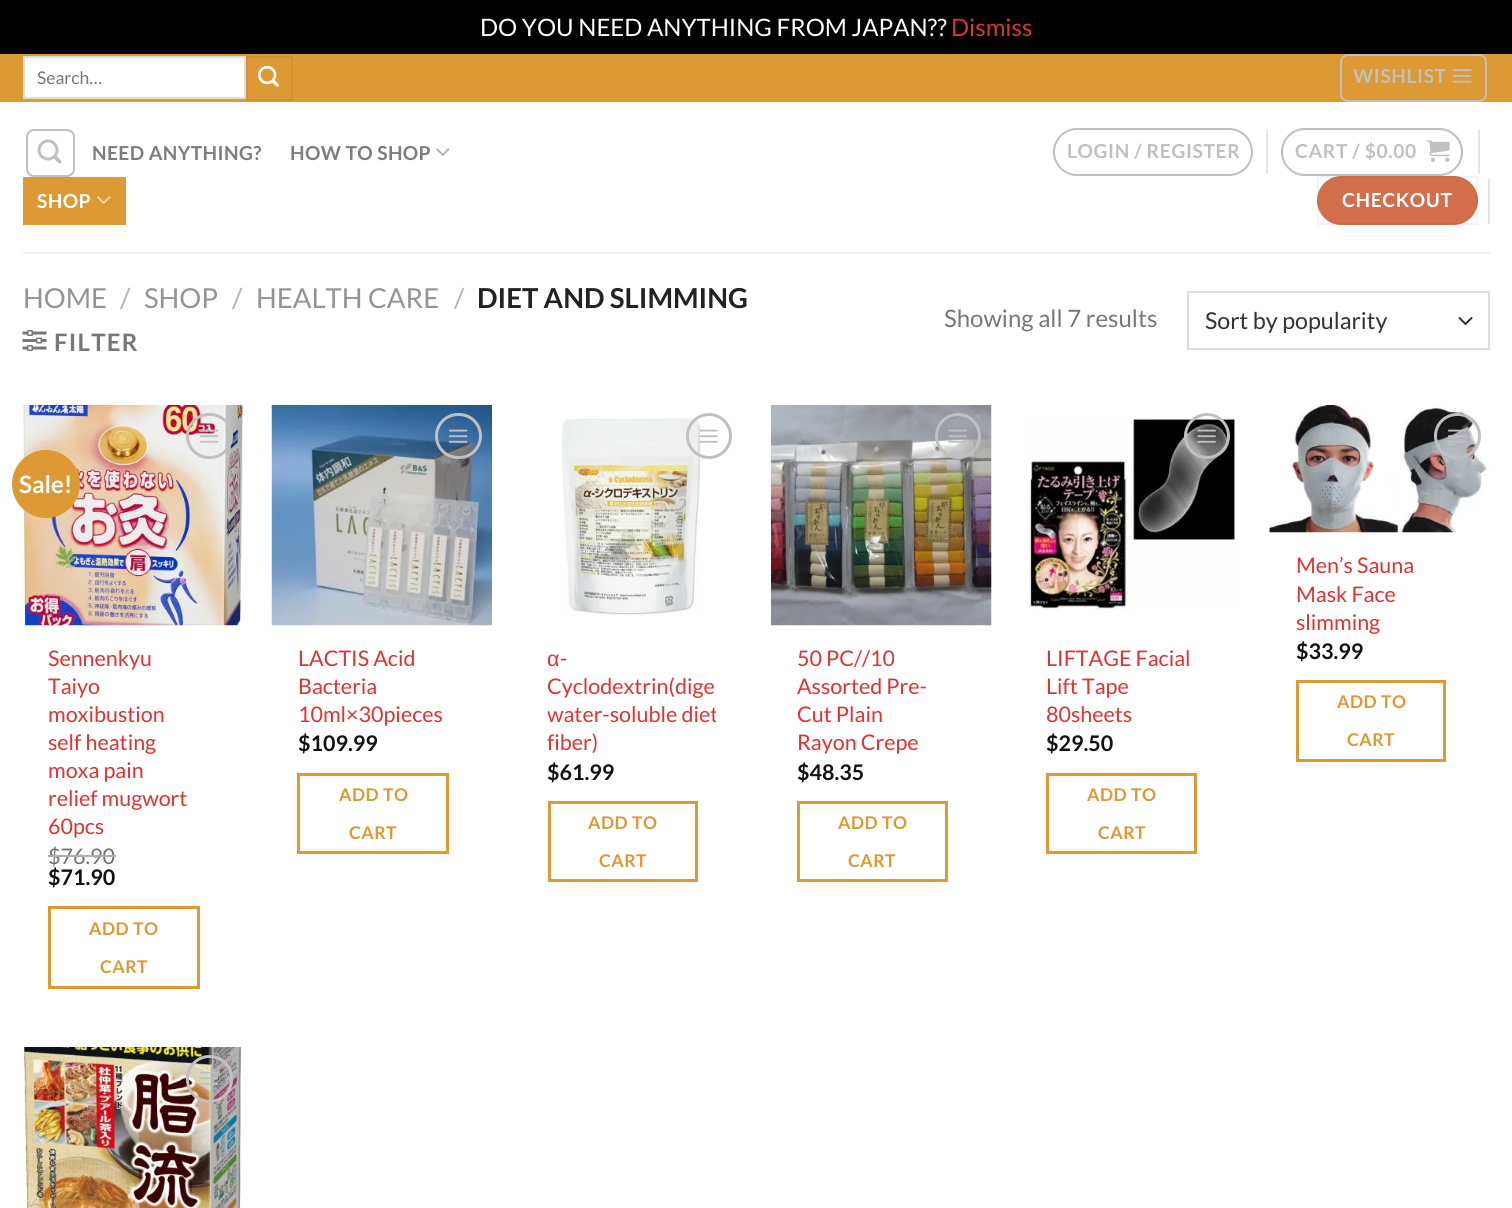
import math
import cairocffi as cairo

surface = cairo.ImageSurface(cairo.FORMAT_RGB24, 1512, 1208)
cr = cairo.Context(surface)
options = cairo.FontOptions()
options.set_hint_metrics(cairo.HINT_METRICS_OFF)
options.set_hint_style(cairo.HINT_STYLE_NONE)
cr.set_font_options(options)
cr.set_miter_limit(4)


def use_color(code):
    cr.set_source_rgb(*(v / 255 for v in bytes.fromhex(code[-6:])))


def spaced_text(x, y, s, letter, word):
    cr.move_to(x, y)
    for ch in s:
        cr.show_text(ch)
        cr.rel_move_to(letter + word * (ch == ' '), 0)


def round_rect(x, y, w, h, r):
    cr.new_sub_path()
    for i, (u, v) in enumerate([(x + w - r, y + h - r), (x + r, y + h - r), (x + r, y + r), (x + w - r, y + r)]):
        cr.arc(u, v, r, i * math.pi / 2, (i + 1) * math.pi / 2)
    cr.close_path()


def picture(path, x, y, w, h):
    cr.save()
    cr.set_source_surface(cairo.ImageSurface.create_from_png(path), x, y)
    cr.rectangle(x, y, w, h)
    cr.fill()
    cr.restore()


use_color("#000000")
cr.paint()
cr.select_font_face("Lato")
cr.set_font_size(24)
use_color("#ffffff")
cr.move_to(480, 36)
cr.show_text("DO YOU NEED ANYTHING FROM JAPAN??")
use_color("#dd3333")
cr.move_to(951, 36)
cr.show_text("Dismiss")
use_color("#ffffff")
cr.rectangle(0, 102, 1512, 1106)
cr.fill()
use_color("#dd9933")
cr.rectangle(0, 54, 1512, 48)
cr.fill()
use_color("#ffffff")
cr.rectangle(24, 57, 221, 41)
cr.fill_preserve()
use_color("#dddddd")
cr.stroke()
cr.set_font_size(17.5)
use_color("#777777")
cr.move_to(37, 84)
cr.show_text("Search…")
cr.rectangle(247, 57, 45, 43)
use_color("#d29130")
cr.stroke()
picture("img1.png", 258, 65, 21, 22)
round_rect(1341, 55, 145, 46, 7)
use_color("#c0c0c0")
cr.stroke()
cr.select_font_face("Lato", cairo.FONT_SLANT_NORMAL, cairo.FONT_WEIGHT_BOLD)
cr.set_font_size(19.25)
spaced_text(1353, 83, "WISHLIST", 0.6, 0)
picture("img2.png", 1452, 69, 20, 14)
round_rect(27, 130, 47, 46, 7)
cr.stroke()
picture("img3.png", 37, 139, 25, 25)
use_color("#7d7d7d")
spaced_text(92, 160, "NEED ANYTHING?", 0.4, 0)
spaced_text(290, 160, "HOW TO SHOP", 0.4, 0)
picture("img4.png", 436, 148, 14, 8)
use_color("#dd9933")
cr.rectangle(23, 177, 103, 48)
cr.fill()
use_color("#ffffff")
spaced_text(37, 208, "SHOP", 0.4, 0)
picture("img5.png", 97, 196, 14, 8)
round_rect(1054, 129, 198, 46, 23)
use_color("#c0c0c0")
cr.stroke()
spaced_text(1067, 158, "LOGIN / REGISTER", 0.6, 0)
use_color("#e6e6e6")
cr.rectangle(1266, 129, 2, 45)
cr.fill()
round_rect(1282, 129, 180, 46, 23)
use_color("#c0c0c0")
cr.stroke()
spaced_text(1295, 158, "CART / $0.00", 0.6, 0)
picture("img6.png", 1426, 140, 24, 22)
use_color("#e6e6e6")
cr.rectangle(1478, 129, 2, 45)
cr.fill()
use_color("#d26e4b")
round_rect(1317, 176, 161, 49, 24.5)
cr.fill()
cr.rectangle(1318, 177, 159, 47)
cr.set_source_rgba(0, 0, 0, 0.05)
cr.stroke()
use_color("#ffffff")
spaced_text(1342, 207, "CHECKOUT", 0.6, 0)
use_color("#e6e6e6")
cr.rectangle(1488, 179, 2, 45)
cr.fill()
use_color("#f1f1f1")
cr.rectangle(23, 252, 1467, 2)
cr.fill()
cr.select_font_face("Lato")
cr.set_font_size(27.5)
use_color("#949494")
cr.move_to(23, 308)
cr.show_text("HOME")
use_color("#b2b2b2")
cr.move_to(120, 308)
cr.show_text("/")
use_color("#949494")
cr.move_to(144, 308)
cr.show_text("SHOP")
use_color("#b2b2b2")
cr.move_to(232, 308)
cr.show_text("/")
use_color("#949494")
cr.move_to(256, 308)
cr.show_text("HEALTH CARE")
use_color("#b2b2b2")
cr.move_to(454, 308)
cr.show_text("/")
cr.select_font_face("Lato", cairo.FONT_SLANT_NORMAL, cairo.FONT_WEIGHT_BOLD)
use_color("#222222")
cr.move_to(477, 308)
cr.show_text("DIET AND SLIMMING")
picture("img7.png", 22, 330, 25, 21)
cr.set_font_size(24)
use_color("#777777")
spaced_text(54, 351, "FILTER", 1.25, 0)
cr.select_font_face("Lato")
cr.move_to(944, 327)
cr.show_text("Showing all 7 results")
cr.new_path()
cr.move_to(1459.5, 318)
cr.line_to(1465.5, 324)
cr.line_to(1471.5, 318)
use_color("#333333")
cr.set_line_cap(cairo.LINE_CAP_ROUND)
cr.set_line_join(cairo.LINE_JOIN_ROUND)
cr.stroke()
cr.rectangle(1188, 292, 301, 57)
use_color("#dddddd")
cr.set_line_cap(cairo.LINE_CAP_BUTT)
cr.set_line_join(cairo.LINE_JOIN_MITER)
cr.stroke()
cr.set_font_size(23.25)
use_color("#333333")
cr.move_to(1205, 329)
cr.show_text("Sort by popularity")
picture("img8.png", 23, 405, 220, 221)
use_color("#dd9933")
cr.arc(46, 484, 34, 0, 2 * math.pi)
cr.fill()
cr.select_font_face("Lato", cairo.FONT_SLANT_NORMAL, cairo.FONT_WEIGHT_BOLD)
cr.set_font_size(24)
use_color("#ffffff")
cr.move_to(19, 493)
cr.show_text("Sale!")
round_rect(187.5, 414.5, 44, 43, 21.5)
use_color("#c0c0c0")
cr.set_line_width(3)
cr.stroke()
picture("img9.png", 199, 429, 20, 14)
cr.select_font_face("Lato")
cr.set_font_size(21.5)
use_color("#dd3333")
cr.move_to(48, 666)
cr.show_text("Sennenkyu")
cr.move_to(48, 694)
cr.show_text("Taiyo")
cr.move_to(48, 722)
cr.show_text("moxibustion")
cr.move_to(48, 750)
cr.show_text("self heating")
cr.move_to(48, 778)
cr.show_text("moxa pain")
cr.move_to(48, 806)
cr.show_text("relief mugwort")
cr.move_to(48, 834)
cr.show_text("60pcs")
use_color("#707070")
cr.move_to(48, 864)
cr.show_text("$76.90")
use_color("#adadad")
cr.rectangle(48, 855, 68, 2)
cr.fill()
cr.select_font_face("Lato", cairo.FONT_SLANT_NORMAL, cairo.FONT_WEIGHT_BOLD)
use_color("#111111")
cr.move_to(48, 885)
cr.show_text("$71.90")
cr.rectangle(49.5, 907.5, 149, 80)
use_color("#dd9933")
cr.stroke()
cr.set_font_size(17.5)
spaced_text(89, 935, "ADD TO", 0.5, 0)
spaced_text(100, 973, "CART", 0.5, 0)
picture("img10.png", 271, 405, 221, 221)
round_rect(436.5, 414.5, 44, 43, 21.5)
use_color("#c0c0c0")
cr.stroke()
picture("img11.png", 448, 429, 20, 14)
cr.select_font_face("Lato")
cr.set_font_size(21.5)
use_color("#dd3333")
cr.move_to(298, 666)
cr.show_text("LACTIS Acid")
cr.move_to(298, 694)
cr.show_text("Bacteria")
cr.move_to(298, 722)
cr.show_text("10ml×30pieces")
cr.select_font_face("Lato", cairo.FONT_SLANT_NORMAL, cairo.FONT_WEIGHT_BOLD)
use_color("#111111")
cr.move_to(298, 751)
cr.show_text("$109.99")
cr.rectangle(298.5, 774.5, 149, 78)
use_color("#dd9933")
cr.stroke()
cr.set_font_size(17.5)
spaced_text(339, 801, "ADD TO", 0.5, 0)
spaced_text(349, 839, "CART", 0.5, 0)
picture("img12.png", 562, 418, 140, 198)
cr.arc(709, 436, 21.5, 0, 2 * math.pi)
use_color("#c0c0c0")
cr.stroke()
picture("img13.png", 699, 429, 19, 14)
cr.select_font_face("Liberation Sans")
cr.set_font_size(21.5)
use_color("#dd3333")
cr.move_to(547, 666)
cr.show_text("α")
cr.select_font_face("Lato")
cr.move_to(560, 666)
cr.show_text("-")
cr.move_to(547, 694)
cr.show_text("Cyclodextrin(dige")
cr.save()
cr.rectangle(548, 641, 168, 121)
cr.clip()
cr.move_to(547, 722)
cr.show_text("water-soluble diet")
cr.restore()
cr.move_to(547, 750)
cr.show_text("fiber)")
cr.select_font_face("Lato", cairo.FONT_SLANT_NORMAL, cairo.FONT_WEIGHT_BOLD)
use_color("#111111")
cr.move_to(547, 780)
cr.show_text("$61.99")
cr.rectangle(549.5, 802.5, 147, 78)
use_color("#dd9933")
cr.stroke()
cr.set_font_size(17.5)
spaced_text(588, 829, "ADD TO", 0.5, 0)
spaced_text(599, 867, "CART", 0.5, 0)
picture("img14.png", 771, 405, 221, 221)
cr.arc(958, 436, 21.5, 0, 2 * math.pi)
use_color("#c0c0c0")
cr.stroke()
picture("img15.png", 948, 429, 19, 14)
cr.select_font_face("Lato")
cr.set_font_size(21.5)
use_color("#dd3333")
cr.move_to(797, 666)
cr.show_text("50 PC//10")
cr.move_to(797, 694)
cr.show_text("Assorted Pre-")
cr.move_to(797, 722)
cr.show_text("Cut Plain")
cr.move_to(797, 750)
cr.show_text("Rayon Crepe")
cr.select_font_face("Lato", cairo.FONT_SLANT_NORMAL, cairo.FONT_WEIGHT_BOLD)
use_color("#111111")
cr.move_to(797, 780)
cr.show_text("$48.35")
cr.rectangle(798.5, 802.5, 148, 78)
use_color("#dd9933")
cr.stroke()
cr.set_font_size(17.5)
spaced_text(838, 829, "ADD TO", 0.5, 0)
spaced_text(848, 867, "CART", 0.5, 0)
picture("img17.png", 1027, 417, 209, 194)
cr.arc(1207, 436, 21.5, 0, 2 * math.pi)
use_color("#c0c0c0")
cr.stroke()
picture("img16.png", 1197, 429, 19, 14)
cr.select_font_face("Lato")
cr.set_font_size(21.5)
use_color("#dd3333")
cr.move_to(1046, 666)
cr.show_text("LIFTAGE Facial")
cr.move_to(1046, 694)
cr.show_text("Lift Tape")
cr.move_to(1046, 722)
cr.show_text("80sheets")
cr.select_font_face("Lato", cairo.FONT_SLANT_NORMAL, cairo.FONT_WEIGHT_BOLD)
use_color("#111111")
cr.move_to(1046, 751)
cr.show_text("$29.50")
cr.rectangle(1047.5, 774.5, 148, 78)
use_color("#dd9933")
cr.stroke()
cr.set_font_size(17.5)
spaced_text(1087, 801, "ADD TO", 0.5, 0)
spaced_text(1098, 839, "CART", 0.5, 0)
picture("img18.png", 1269, 405, 220, 128)
round_rect(1435.5, 414.5, 44, 43, 21.5)
use_color("#c0c0c0")
cr.stroke()
picture("img19.png", 1447, 429, 20, 14)
cr.select_font_face("Lato")
cr.set_font_size(21.5)
use_color("#dd3333")
cr.move_to(1296, 573)
cr.show_text("Men’s Sauna")
cr.move_to(1296, 602)
cr.show_text("Mask Face")
cr.move_to(1296, 630)
cr.show_text("slimming")
cr.select_font_face("Lato", cairo.FONT_SLANT_NORMAL, cairo.FONT_WEIGHT_BOLD)
use_color("#111111")
cr.move_to(1296, 659)
cr.show_text("$33.99")
cr.rectangle(1297.5, 681.5, 147, 79)
use_color("#dd9933")
cr.stroke()
cr.set_font_size(17.5)
spaced_text(1337, 708, "ADD TO", 0.5, 0)
spaced_text(1347, 746, "CART", 0.5, 0)
picture("img20.png", 23, 1047, 220, 161)
round_rect(187.5, 1056.5, 44, 45, 22)
use_color("#c0c0c0")
cr.stroke()
picture("img21.png", 200, 1071, 19, 14)
surface.write_to_png("result.png")
